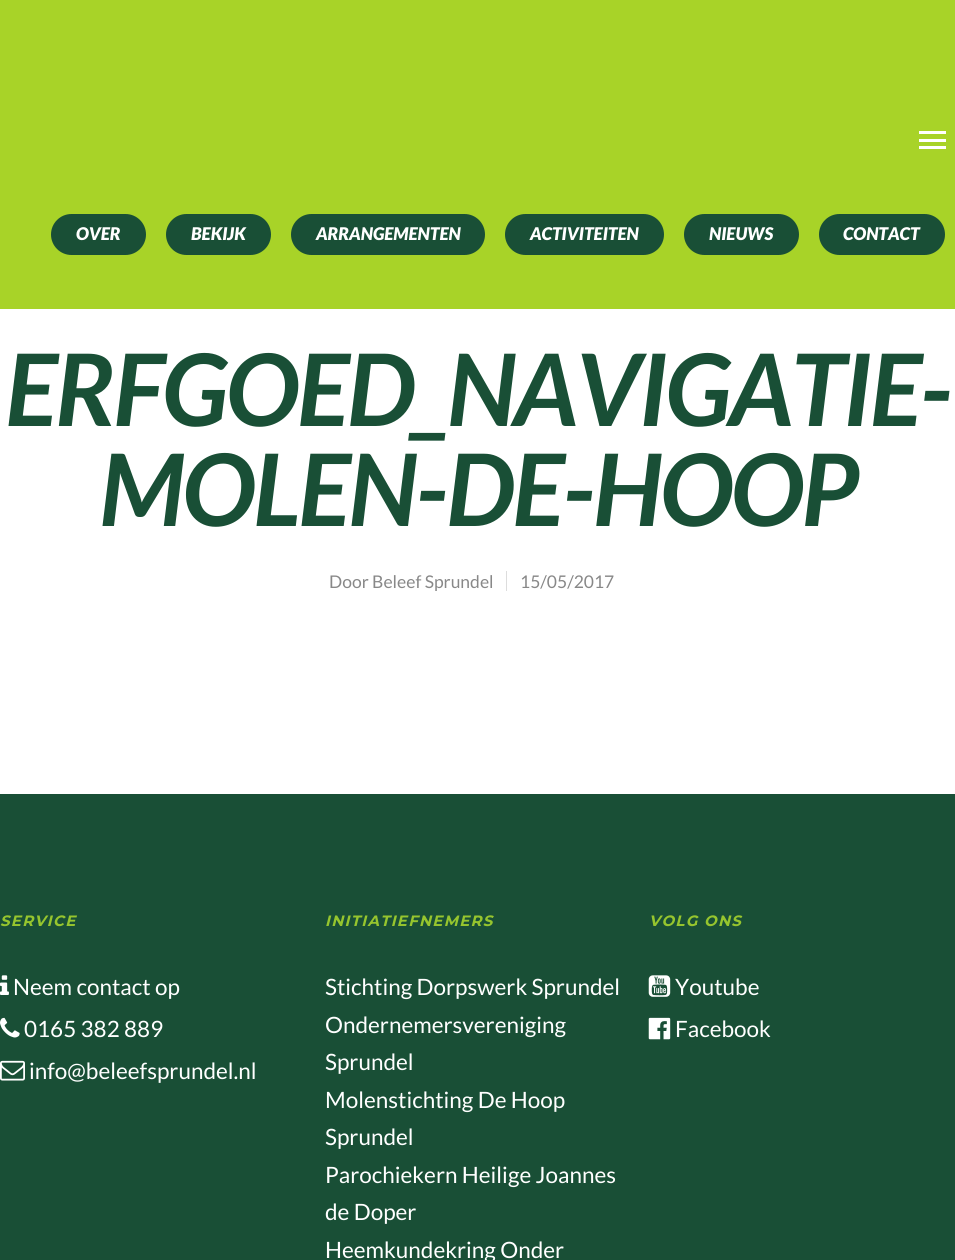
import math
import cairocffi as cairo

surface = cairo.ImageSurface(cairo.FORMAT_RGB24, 955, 1260)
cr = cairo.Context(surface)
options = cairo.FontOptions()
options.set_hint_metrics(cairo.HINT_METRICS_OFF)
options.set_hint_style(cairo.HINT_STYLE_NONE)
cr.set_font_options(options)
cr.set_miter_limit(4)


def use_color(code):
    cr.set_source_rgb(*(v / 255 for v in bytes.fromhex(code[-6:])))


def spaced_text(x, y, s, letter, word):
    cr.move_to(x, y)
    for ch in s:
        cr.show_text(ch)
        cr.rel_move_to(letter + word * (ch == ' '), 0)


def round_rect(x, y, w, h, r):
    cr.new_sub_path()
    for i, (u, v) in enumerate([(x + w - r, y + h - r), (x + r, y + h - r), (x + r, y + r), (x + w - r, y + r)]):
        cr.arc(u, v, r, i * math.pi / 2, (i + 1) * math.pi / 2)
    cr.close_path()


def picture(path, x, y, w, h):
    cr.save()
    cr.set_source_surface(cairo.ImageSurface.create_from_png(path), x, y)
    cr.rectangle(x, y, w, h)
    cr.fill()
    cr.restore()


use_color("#ffffff")
cr.paint()
use_color("#a8d328")
cr.rectangle(0, 0, 955, 309)
cr.fill()
use_color("#ffffff")
cr.rectangle(919, 131, 27, 3)
cr.fill()
cr.rectangle(919, 146, 27, 3)
cr.fill()
cr.rectangle(919, 139, 27, 3)
cr.fill()
use_color("#194f36")
round_rect(51, 214, 95, 41, 20.5)
cr.fill()
cr.select_font_face("Lato Black", cairo.FONT_SLANT_ITALIC)
cr.set_font_size(17.5)
use_color("#ffffff")
cr.move_to(76, 240)
cr.show_text("OVER")
use_color("#194f36")
round_rect(166, 214, 105, 41, 20.5)
cr.fill()
use_color("#ffffff")
cr.move_to(191, 240)
cr.show_text("BEKIJK")
use_color("#194f36")
round_rect(291, 214, 194, 41, 20.5)
cr.fill()
use_color("#ffffff")
cr.move_to(316, 240)
cr.show_text("ARRANGEMENTEN")
use_color("#194f36")
round_rect(505, 214, 159, 41, 20.5)
cr.fill()
use_color("#ffffff")
cr.move_to(530, 240)
cr.show_text("ACTIVITEITEN")
use_color("#194f36")
round_rect(684, 214, 115, 41, 20.5)
cr.fill()
use_color("#ffffff")
cr.move_to(709, 240)
cr.show_text("NIEUWS")
use_color("#194f36")
round_rect(819, 214, 126, 41, 20.5)
cr.fill()
use_color("#ffffff")
cr.move_to(843, 240)
cr.show_text("CONTACT")
cr.select_font_face("Lato", cairo.FONT_SLANT_ITALIC, cairo.FONT_WEIGHT_BOLD)
cr.set_font_size(100)
use_color("#194f36")
spaced_text(5, 426, "ERFGOED_NAVIGATIE-", -2.5, 0)
spaced_text(99, 526, "MOLEN-DE-HOOP", -2.5, 0)
cr.select_font_face("Lato")
cr.set_font_size(17.5)
use_color("#888888")
cr.move_to(329, 588)
cr.show_text("Door Beleef Sprundel")
use_color("#dddddd")
cr.rectangle(506, 571, 1, 20)
cr.fill()
use_color("#888888")
cr.move_to(520, 588)
cr.show_text("15/05/2017")
use_color("#194f36")
cr.rectangle(0, 794, 955, 466)
cr.fill()
cr.select_font_face("Montserrat", cairo.FONT_SLANT_ITALIC, cairo.FONT_WEIGHT_BOLD)
cr.set_font_size(15)
use_color("#96c52e")
spaced_text(0, 926, "SERVICE", 1.25, 0)
picture("img1.png", 0, 975, 9, 20)
cr.select_font_face("Lato")
cr.set_font_size(22.5)
use_color("#ffffff")
cr.move_to(13, 995)
cr.show_text("Neem contact op")
picture("img2.png", 0, 1017, 20, 21)
cr.move_to(24, 1037)
cr.show_text("0165 382 889")
picture("img3.png", 0, 1060, 25, 21)
cr.move_to(29, 1079)
cr.show_text("info@beleefsprundel.nl")
cr.select_font_face("Montserrat", cairo.FONT_SLANT_ITALIC, cairo.FONT_WEIGHT_BOLD)
cr.set_font_size(15)
use_color("#96c52e")
spaced_text(325, 926, "INITIATIEFNEMERS", 1.25, 0)
cr.select_font_face("Lato")
cr.set_font_size(22.5)
use_color("#ffffff")
cr.move_to(325, 995)
cr.show_text("Stichting Dorpswerk Sprundel")
cr.move_to(325, 1033)
cr.show_text("Ondernemersvereniging")
cr.move_to(325, 1070)
cr.show_text("Sprundel")
cr.move_to(325, 1108)
cr.show_text("Molenstichting De Hoop")
cr.move_to(325, 1145)
cr.show_text("Sprundel")
cr.move_to(325, 1183)
cr.show_text("Parochiekern Heilige Joannes")
cr.move_to(325, 1220)
cr.show_text("de Doper")
cr.move_to(325, 1258)
cr.show_text("Heemkundekring Onder")
cr.select_font_face("Montserrat", cairo.FONT_SLANT_ITALIC, cairo.FONT_WEIGHT_BOLD)
cr.set_font_size(15)
use_color("#96c52e")
spaced_text(649, 926, "VOLG ONS", 1.25, 0)
picture("img4.png", 648, 975, 23, 22)
cr.select_font_face("Lato")
cr.set_font_size(22.5)
use_color("#ffffff")
cr.move_to(675, 995)
cr.show_text("Youtube")
picture("img5.png", 648, 1017, 23, 23)
cr.move_to(675, 1037)
cr.show_text("Facebook")
surface.write_to_png("result.png")
